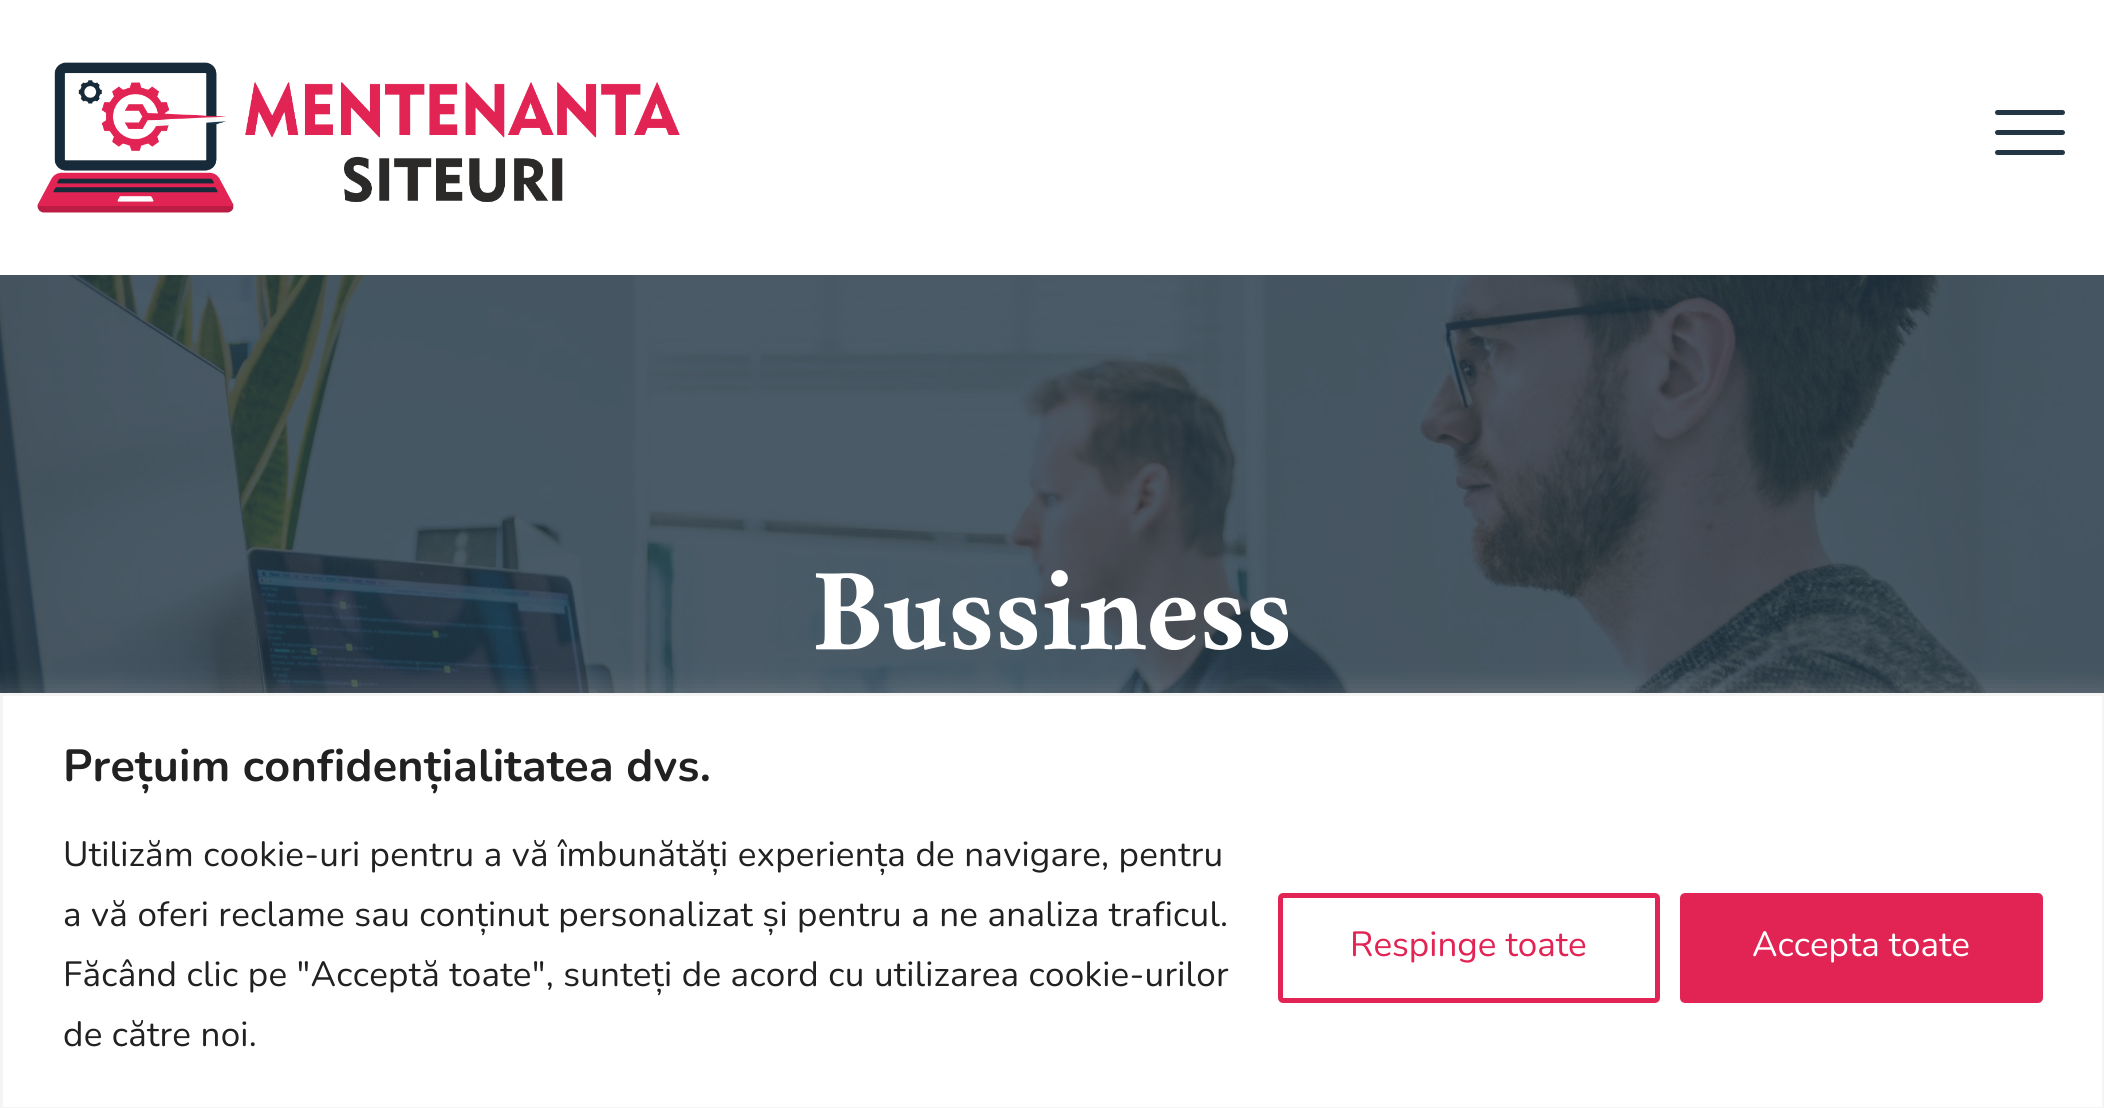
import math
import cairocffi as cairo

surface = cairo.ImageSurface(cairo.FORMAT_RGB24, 2104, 1108)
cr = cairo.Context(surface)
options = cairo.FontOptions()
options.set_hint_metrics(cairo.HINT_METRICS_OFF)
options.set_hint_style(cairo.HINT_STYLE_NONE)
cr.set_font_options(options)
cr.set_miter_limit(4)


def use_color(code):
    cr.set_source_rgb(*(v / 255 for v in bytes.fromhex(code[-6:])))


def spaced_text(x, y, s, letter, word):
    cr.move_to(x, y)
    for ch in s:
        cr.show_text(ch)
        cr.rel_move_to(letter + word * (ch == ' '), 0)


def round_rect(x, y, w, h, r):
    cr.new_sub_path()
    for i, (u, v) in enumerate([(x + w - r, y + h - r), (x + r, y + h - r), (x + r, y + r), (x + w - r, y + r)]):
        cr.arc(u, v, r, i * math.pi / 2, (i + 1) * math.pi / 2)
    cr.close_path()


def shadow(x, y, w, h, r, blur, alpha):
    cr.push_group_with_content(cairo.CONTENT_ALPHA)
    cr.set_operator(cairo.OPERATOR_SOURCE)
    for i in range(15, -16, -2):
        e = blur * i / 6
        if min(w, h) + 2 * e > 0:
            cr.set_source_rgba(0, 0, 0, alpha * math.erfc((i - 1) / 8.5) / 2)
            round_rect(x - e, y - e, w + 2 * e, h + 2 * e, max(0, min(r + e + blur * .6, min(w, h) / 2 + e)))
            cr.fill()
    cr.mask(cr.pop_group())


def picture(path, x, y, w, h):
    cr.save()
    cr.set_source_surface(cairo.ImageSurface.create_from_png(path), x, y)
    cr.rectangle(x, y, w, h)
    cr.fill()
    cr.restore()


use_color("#ffffff")
cr.paint()
picture("img1.png", 37, 62, 643, 151)
use_color("#223645")
round_rect(1995, 130, 70, 5, 2.5)
cr.fill()
round_rect(1995, 110, 70, 5, 2.5)
cr.fill()
round_rect(1995, 150, 70, 5, 2.5)
cr.fill()
picture("img2.png", 0, 275, 2104, 418)
cr.select_font_face("Amiri", cairo.FONT_SLANT_NORMAL, cairo.FONT_WEIGHT_BOLD)
cr.set_font_size(117.5)
use_color("#ffffff")
spaced_text(812, 649, "Bussiness", 0.25, 0)
use_color("#acabab")
shadow(0, 690, 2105, 418, 0, 12.5, 0.3)
use_color("#ffffff")
cr.rectangle(1.5, 694.5, 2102, 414)
cr.fill_preserve()
use_color("#f4f4f4")
cr.set_line_width(3)
cr.stroke()
cr.select_font_face("Nunito", cairo.FONT_SLANT_NORMAL, cairo.FONT_WEIGHT_BOLD)
cr.set_font_size(45)
use_color("#212121")
spaced_text(63, 781, "Prețuim confidențialitatea dvs.", 0.25, 0)
cr.select_font_face("Nunito")
cr.set_font_size(35)
spaced_text(63, 866, "Utilizăm cookie-uri pentru a vă îmbunătăți experiența de navigare, pentru", 0.25, 0)
spaced_text(63, 926, "a vă oferi reclame sau conținut personalizat și pentru a ne analiza traficul.", 0.25, 0)
spaced_text(63, 986, "Făcând clic pe \"Acceptă toate\", sunteți de acord cu utilizarea cookie-urilor", 0.25, 0)
spaced_text(63, 1046, "de către noi.", 0.25, 0)
round_rect(1280.5, 895.5, 377, 105, 2.5)
use_color("#e12454")
cr.set_line_width(5)
cr.stroke()
cr.move_to(1350, 956)
cr.show_text("Respinge toate")
round_rect(1682.5, 895.5, 358, 105, 2.5)
cr.fill_preserve()
cr.stroke()
use_color("#ffffff")
cr.move_to(1752, 956)
cr.show_text("Accepta toate")
surface.write_to_png("result.png")
